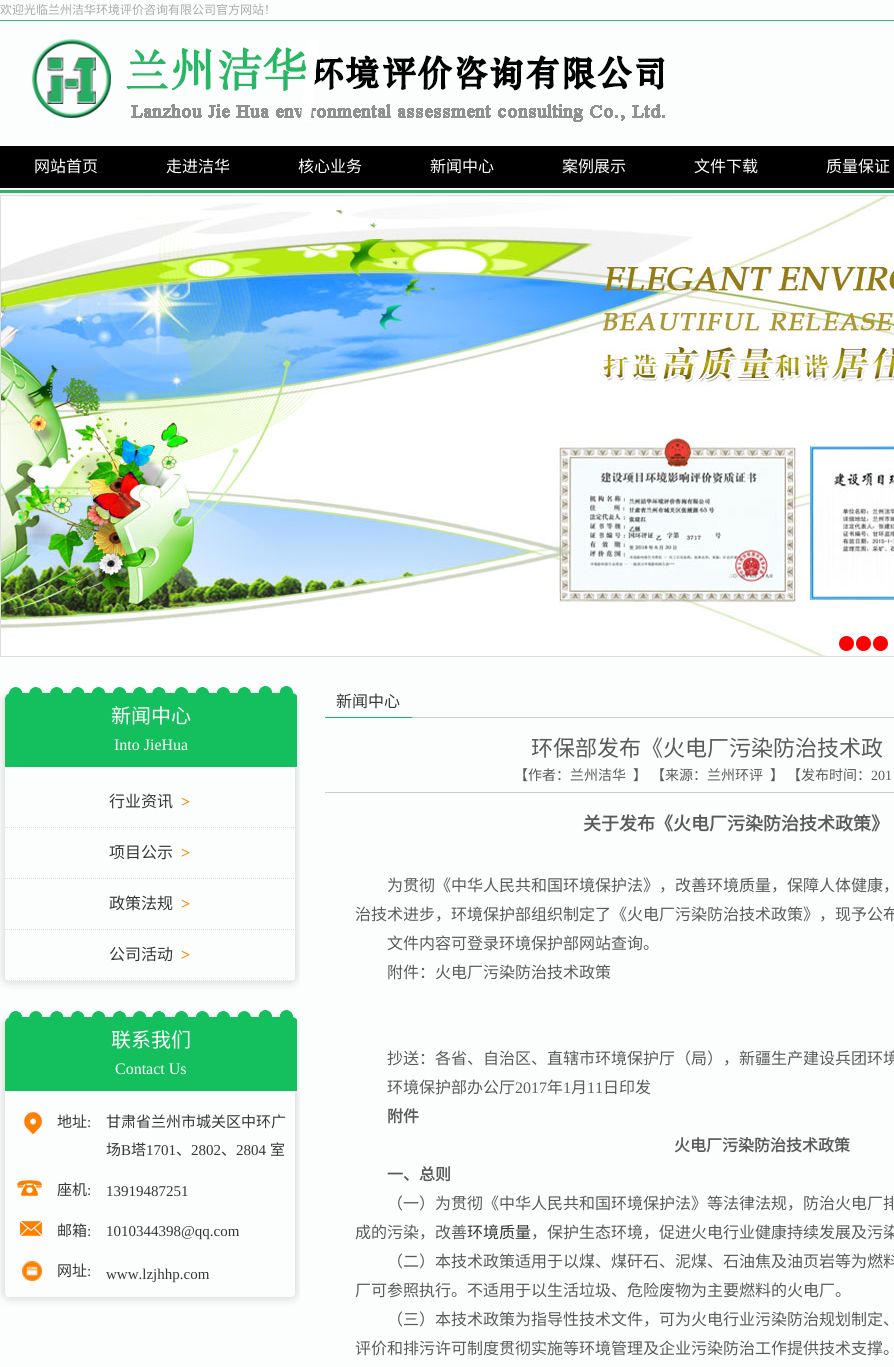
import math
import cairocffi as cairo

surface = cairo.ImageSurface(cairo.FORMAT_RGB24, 894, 1367)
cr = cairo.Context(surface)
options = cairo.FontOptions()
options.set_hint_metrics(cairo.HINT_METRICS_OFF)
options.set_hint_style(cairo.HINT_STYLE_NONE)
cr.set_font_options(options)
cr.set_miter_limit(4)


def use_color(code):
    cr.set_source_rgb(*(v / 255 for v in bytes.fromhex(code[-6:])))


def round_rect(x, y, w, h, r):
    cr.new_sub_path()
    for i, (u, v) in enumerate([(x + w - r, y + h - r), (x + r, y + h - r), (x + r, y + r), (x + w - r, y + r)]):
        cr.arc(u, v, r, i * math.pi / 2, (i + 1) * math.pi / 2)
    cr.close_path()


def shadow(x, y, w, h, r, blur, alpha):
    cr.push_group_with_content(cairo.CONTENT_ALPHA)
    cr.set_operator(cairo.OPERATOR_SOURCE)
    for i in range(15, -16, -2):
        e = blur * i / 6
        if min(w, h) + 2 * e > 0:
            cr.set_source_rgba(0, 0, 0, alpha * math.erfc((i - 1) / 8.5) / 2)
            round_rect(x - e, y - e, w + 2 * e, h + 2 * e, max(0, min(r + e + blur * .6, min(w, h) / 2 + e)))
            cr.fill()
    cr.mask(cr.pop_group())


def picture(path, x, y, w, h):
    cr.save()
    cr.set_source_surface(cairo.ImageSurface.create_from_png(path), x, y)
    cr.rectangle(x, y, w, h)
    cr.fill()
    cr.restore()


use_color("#fbfefc")
cr.paint()
use_color("#36bd6f")
cr.rectangle(0, 20, 894, 1)
cr.fill()
cr.select_font_face("Noto Sans CJK SC")
cr.set_font_size(12)
use_color("#a9aaa9")
cr.move_to(0, 14)
cr.show_text("欢迎光临兰州洁华环境评价咨询有限公司官方网站！")
picture("img1.png", 32, 39, 633, 83)
use_color("#000000")
cr.rectangle(0, 146, 894, 42)
cr.fill()
cr.set_font_size(16)
use_color("#ffffff")
cr.move_to(34, 172)
cr.show_text("网站首页")
cr.move_to(166, 172)
cr.show_text("走进洁华")
cr.move_to(298, 172)
cr.show_text("核心业务")
cr.move_to(430, 172)
cr.show_text("新闻中心")
cr.move_to(562, 172)
cr.show_text("案例展示")
cr.move_to(694, 172)
cr.show_text("文件下载")
cr.move_to(826, 172)
cr.show_text("质量保证")
use_color("#26b864")
cr.rectangle(0, 190, 894, 3)
cr.fill()
cr.rectangle(0.5, 195.5, 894, 461)
use_color("#dddddd")
cr.set_line_width(1)
cr.stroke()
picture("img2.png", 1, 196, 893, 460)
use_color("#ff0000")
cr.arc(846.5, 643.5, 7.5, 0, 2 * math.pi)
cr.fill()
cr.arc(863.5, 643.5, 7.5, 0, 2 * math.pi)
cr.fill()
cr.arc(880.5, 643.5, 7.5, 0, 2 * math.pi)
cr.fill()
cr.save()
cr.rectangle(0, 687, 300, 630)
cr.clip()
cr.set_fill_rule(cairo.FILL_RULE_EVEN_ODD)
cr.new_path()
cr.move_to(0, 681)
cr.line_to(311, 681)
cr.line_to(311, 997)
cr.line_to(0, 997)
cr.close_path()
cr.move_to(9, 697)
cr.line_to(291, 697)
cr.curve_to(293, 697, 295, 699, 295, 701)
cr.line_to(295, 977)
cr.curve_to(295, 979, 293, 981, 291, 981)
cr.line_to(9, 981)
cr.curve_to(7, 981, 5, 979, 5, 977)
cr.line_to(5, 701)
cr.curve_to(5, 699, 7, 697, 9, 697)
cr.close_path()
cr.clip()
use_color("#cccccc")
shadow(5, 697, 290, 284, 4, 5, 1)
cr.restore()
picture("img3.png", 5, 686, 292, 81)
cr.set_font_size(20)
use_color("#ffffff")
cr.move_to(111, 723)
cr.show_text("新闻中心")
cr.select_font_face("Liberation Serif")
cr.set_font_size(16)
cr.move_to(114, 750)
cr.show_text("Into JieHua")
cr.new_path()
cr.move_to(5, 827.5)
cr.line_to(295, 827.5)
use_color("#dddddd")
cr.set_dash([1, 1])
cr.stroke()
cr.select_font_face("Noto Sans CJK SC")
use_color("#363636")
cr.move_to(109, 807)
cr.show_text("行业资讯")
cr.select_font_face("Liberation Serif", cairo.FONT_SLANT_NORMAL, cairo.FONT_WEIGHT_BOLD)
use_color("#fd8001")
cr.move_to(181, 807)
cr.show_text(">")
cr.new_path()
cr.move_to(5, 878.5)
cr.line_to(295, 878.5)
use_color("#dddddd")
cr.stroke()
cr.select_font_face("Noto Sans CJK SC")
use_color("#363636")
cr.move_to(109, 858)
cr.show_text("项目公示")
cr.select_font_face("Liberation Serif", cairo.FONT_SLANT_NORMAL, cairo.FONT_WEIGHT_BOLD)
use_color("#fd8001")
cr.move_to(181, 858)
cr.show_text(">")
cr.new_path()
cr.move_to(5, 929.5)
cr.line_to(295, 929.5)
use_color("#dddddd")
cr.stroke()
cr.select_font_face("Noto Sans CJK SC")
use_color("#363636")
cr.move_to(109, 909)
cr.show_text("政策法规")
cr.select_font_face("Liberation Serif", cairo.FONT_SLANT_NORMAL, cairo.FONT_WEIGHT_BOLD)
use_color("#fd8001")
cr.move_to(181, 909)
cr.show_text(">")
cr.save()
round_rect(5, 697, 290, 284, 4)
cr.clip()
cr.new_path()
cr.move_to(5, 980.5)
cr.line_to(295, 980.5)
use_color("#dddddd")
cr.stroke()
cr.restore()
cr.select_font_face("Noto Sans CJK SC")
use_color("#363636")
cr.move_to(109, 960)
cr.show_text("公司活动")
cr.select_font_face("Liberation Serif", cairo.FONT_SLANT_NORMAL, cairo.FONT_WEIGHT_BOLD)
use_color("#fd8001")
cr.move_to(181, 960)
cr.show_text(">")
cr.save()
cr.rectangle(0, 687, 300, 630)
cr.clip()
cr.set_fill_rule(cairo.FILL_RULE_EVEN_ODD)
cr.new_path()
cr.move_to(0, 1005)
cr.line_to(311, 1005)
cr.line_to(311, 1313)
cr.line_to(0, 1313)
cr.close_path()
cr.move_to(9, 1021)
cr.line_to(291, 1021)
cr.curve_to(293, 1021, 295, 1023, 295, 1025)
cr.line_to(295, 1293)
cr.curve_to(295, 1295, 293, 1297, 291, 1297)
cr.line_to(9, 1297)
cr.curve_to(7, 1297, 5, 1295, 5, 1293)
cr.line_to(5, 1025)
cr.curve_to(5, 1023, 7, 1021, 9, 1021)
cr.close_path()
cr.clip()
use_color("#cccccc")
shadow(5, 1021, 290, 276, 4, 5, 1)
cr.restore()
picture("img4.png", 5, 1010, 292, 81)
cr.select_font_face("Noto Sans CJK SC")
cr.set_font_size(20)
use_color("#ffffff")
cr.move_to(111, 1047)
cr.show_text("联系我们")
cr.select_font_face("Liberation Serif")
cr.set_font_size(16)
cr.move_to(115, 1074)
cr.show_text("Contact Us")
picture("img5.png", 24, 1112, 18, 22)
cr.select_font_face("Noto Sans CJK SC")
cr.set_font_size(15)
use_color("#363636")
cr.move_to(57, 1127)
cr.show_text("地址")
cr.select_font_face("Liberation Serif")
cr.move_to(87, 1127)
cr.show_text(":")
cr.select_font_face("Noto Sans CJK SC")
cr.move_to(106, 1127)
cr.show_text("甘肃省兰州市城关区中环广")
cr.move_to(106, 1155)
cr.show_text("场")
cr.select_font_face("Liberation Serif")
cr.move_to(121, 1155)
cr.show_text("B")
cr.select_font_face("Noto Sans CJK SC")
cr.move_to(131, 1155)
cr.show_text("塔")
cr.select_font_face("Liberation Serif")
cr.move_to(146, 1155)
cr.show_text("1701")
cr.select_font_face("Noto Sans CJK SC")
cr.move_to(176, 1155)
cr.show_text("、")
cr.select_font_face("Liberation Serif")
cr.move_to(191, 1155)
cr.show_text("2802")
cr.select_font_face("Noto Sans CJK SC")
cr.move_to(221, 1155)
cr.show_text("、")
cr.select_font_face("Liberation Serif")
cr.move_to(236, 1155)
cr.show_text("2804")
cr.select_font_face("Noto Sans CJK SC")
cr.move_to(270, 1155)
cr.show_text("室")
picture("img6.png", 17, 1180, 25, 16)
cr.move_to(57, 1195)
cr.show_text("座机")
cr.select_font_face("Liberation Serif")
cr.move_to(87, 1195)
cr.show_text(":")
cr.move_to(106, 1196)
cr.show_text("13919487251")
picture("img7.png", 20, 1221, 22, 15)
cr.select_font_face("Noto Sans CJK SC")
cr.move_to(57, 1236)
cr.show_text("邮箱")
cr.select_font_face("Liberation Serif")
cr.move_to(87, 1236)
cr.show_text(":")
cr.move_to(106, 1236)
cr.show_text("1010344398@qq.com")
picture("img8.png", 22, 1261, 20, 20)
cr.select_font_face("Noto Sans CJK SC")
cr.move_to(57, 1276)
cr.show_text("网址")
cr.select_font_face("Liberation Serif")
cr.move_to(87, 1276)
cr.show_text(":")
cr.move_to(106, 1279)
cr.show_text("www.lzjhhp.com")
use_color("#cccccc")
cr.rectangle(412, 717, 482, 1)
cr.fill()
use_color("#14bf5d")
cr.rectangle(325, 717, 87, 1)
cr.fill()
cr.select_font_face("Noto Sans CJK SC")
cr.set_font_size(16)
use_color("#363636")
cr.move_to(336, 707)
cr.show_text("新闻中心")
use_color("#cccccc")
cr.rectangle(325, 792, 569, 1)
cr.fill()
cr.set_font_size(22)
use_color("#5a5a5a")
cr.move_to(531, 756)
cr.show_text("环保部发布《火电厂污染防治技术政")
cr.set_font_size(14)
cr.move_to(514, 780)
cr.show_text("【作者：兰州洁华")
cr.move_to(633, 780)
cr.show_text("】")
cr.move_to(651, 780)
cr.show_text("【来源：兰州环评")
cr.move_to(770, 780)
cr.show_text("】")
cr.move_to(787, 780)
cr.show_text("【发布时间：")
cr.select_font_face("Liberation Serif")
cr.move_to(871, 780)
cr.show_text("201")
cr.select_font_face("Noto Sans CJK SC", cairo.FONT_SLANT_NORMAL, cairo.FONT_WEIGHT_BOLD)
cr.set_font_size(18)
cr.move_to(583, 830)
cr.show_text("关于发布《火电厂污染防治技术政策》")
cr.select_font_face("Noto Sans CJK SC")
cr.set_font_size(16)
cr.move_to(387, 891)
cr.show_text("为贯彻《中华人民共和国环境保护法》，改善环境质量，保障人体健康，")
cr.move_to(355, 920)
cr.show_text("治技术进步，环境保护部组织制定了《火电厂污染防治技术政策》，现予公布")
cr.move_to(387, 949)
cr.show_text("文件内容可登录环境保护部网站查询。")
cr.move_to(387, 978)
cr.show_text("附件：火电厂污染防治技术政策")
cr.move_to(387, 1064)
cr.show_text("抄送：各省、自治区、直辖市环境保护厅（局），新疆生产建设兵团环境")
cr.move_to(387, 1093)
cr.show_text("环境保护部办公厅")
cr.select_font_face("Liberation Serif")
cr.move_to(515, 1093)
cr.show_text("2017")
cr.select_font_face("Noto Sans CJK SC")
cr.move_to(547, 1093)
cr.show_text("年")
cr.select_font_face("Liberation Serif")
cr.move_to(563, 1093)
cr.show_text("1")
cr.select_font_face("Noto Sans CJK SC")
cr.move_to(571, 1093)
cr.show_text("月")
cr.select_font_face("Liberation Serif")
cr.move_to(587, 1093)
cr.show_text("11")
cr.select_font_face("Noto Sans CJK SC")
cr.move_to(603, 1093)
cr.show_text("日印发")
cr.select_font_face("Noto Sans CJK SC", cairo.FONT_SLANT_NORMAL, cairo.FONT_WEIGHT_BOLD)
cr.move_to(387, 1122)
cr.show_text("附件")
cr.move_to(674, 1151)
cr.show_text("火电厂污染防治技术政策")
cr.move_to(387, 1180)
cr.show_text("一、总则")
cr.select_font_face("Noto Sans CJK SC")
cr.move_to(387, 1209)
cr.show_text("（一）为贯彻《中华人民共和国环境保护法》等法律法规，防治火电厂排")
cr.move_to(355, 1238)
cr.show_text("成的污染，改善")
use_color("#363636")
cr.move_to(467, 1238)
cr.show_text("环境质量")
use_color("#5a5a5a")
cr.move_to(531, 1238)
cr.show_text("，保护生态环境，促进火电行业健康持续发展及污染")
cr.move_to(387, 1267)
cr.show_text("（二）本技术政策适用于以煤、煤矸石、泥煤、石油焦及油页岩等为燃料")
cr.move_to(355, 1296)
cr.show_text("厂可参照执行。不适用于以生活垃圾、危险废物为主要燃料的火电厂。")
cr.move_to(387, 1325)
cr.show_text("（三）本技术政策为指导性技术文件，可为火电行业污染防治规划制定、")
cr.move_to(355, 1354)
cr.show_text("评价和排污许可制度贯彻实施等环境管理及企业污染防治工作提供技术支撑。")
surface.write_to_png("result.png")
